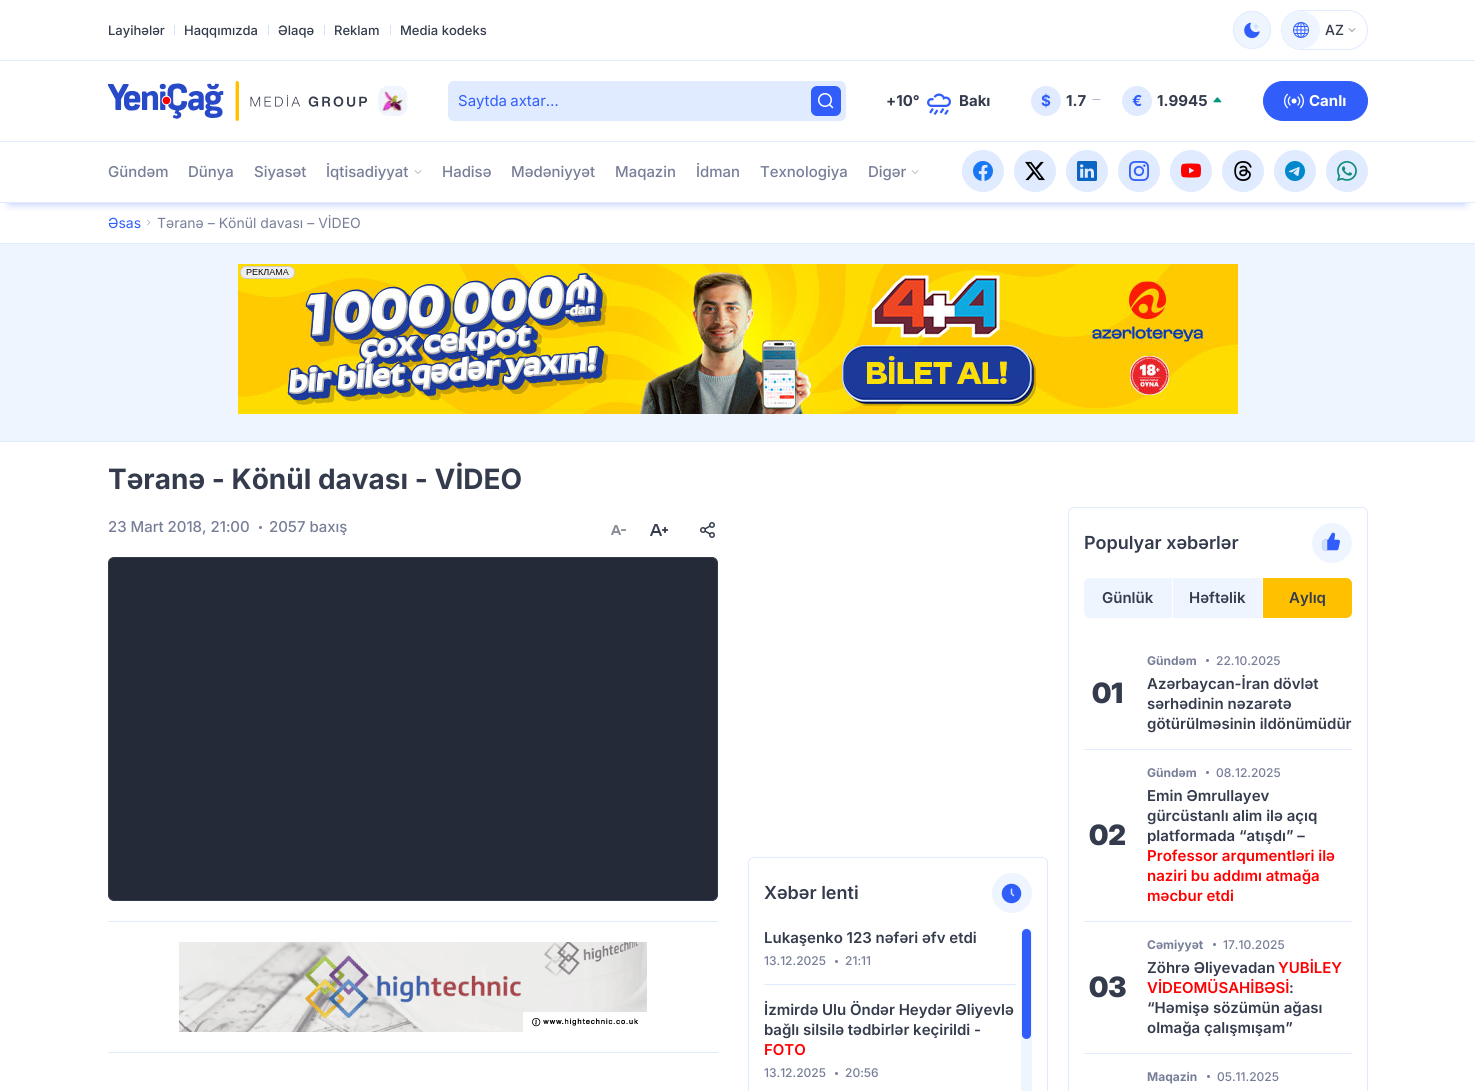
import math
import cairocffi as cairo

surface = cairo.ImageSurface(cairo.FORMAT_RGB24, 1475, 1091)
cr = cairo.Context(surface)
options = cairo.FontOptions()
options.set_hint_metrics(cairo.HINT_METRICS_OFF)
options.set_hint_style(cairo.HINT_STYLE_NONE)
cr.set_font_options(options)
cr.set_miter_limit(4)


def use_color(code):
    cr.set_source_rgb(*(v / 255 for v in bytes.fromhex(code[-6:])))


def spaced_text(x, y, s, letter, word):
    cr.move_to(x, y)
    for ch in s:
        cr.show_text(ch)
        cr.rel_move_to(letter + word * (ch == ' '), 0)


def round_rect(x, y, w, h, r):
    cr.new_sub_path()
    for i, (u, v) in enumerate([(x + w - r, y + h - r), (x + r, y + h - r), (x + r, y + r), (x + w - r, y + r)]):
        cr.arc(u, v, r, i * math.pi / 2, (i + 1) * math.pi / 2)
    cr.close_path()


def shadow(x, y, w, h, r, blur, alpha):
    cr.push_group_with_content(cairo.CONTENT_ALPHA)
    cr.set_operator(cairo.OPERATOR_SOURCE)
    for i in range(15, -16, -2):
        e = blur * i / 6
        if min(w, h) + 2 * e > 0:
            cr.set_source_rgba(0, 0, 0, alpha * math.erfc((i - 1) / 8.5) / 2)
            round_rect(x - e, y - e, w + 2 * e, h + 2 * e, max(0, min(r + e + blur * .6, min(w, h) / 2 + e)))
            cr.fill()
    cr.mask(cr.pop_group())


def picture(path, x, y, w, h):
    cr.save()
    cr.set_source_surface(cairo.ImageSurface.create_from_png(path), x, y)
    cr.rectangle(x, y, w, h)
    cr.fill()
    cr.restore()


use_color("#ffffff")
cr.paint()
cr.save()
cr.rectangle(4, 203, 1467, 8)
cr.clip()
use_color("#315efb")
shadow(10, 20, 1455, 183, 0, 5, 0.4)
cr.restore()
use_color("#e0ebff")
cr.rectangle(0, 60, 1475, 1)
cr.fill()
cr.select_font_face("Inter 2 Medium")
cr.set_font_size(13)
use_color("#343b4c")
cr.move_to(108, 35)
cr.show_text("Layihələr")
use_color("#d1e2ff")
cr.rectangle(174, 25, 1, 10)
cr.fill()
use_color("#343b4c")
cr.move_to(184, 35)
cr.show_text("Haqqımızda")
use_color("#d1e2ff")
cr.rectangle(268, 25, 1, 10)
cr.fill()
use_color("#343b4c")
cr.move_to(278, 35)
cr.show_text("Əlaqə")
use_color("#d1e2ff")
cr.rectangle(324, 25, 1, 10)
cr.fill()
use_color("#343b4c")
cr.move_to(334, 35)
cr.show_text("Reklam")
use_color("#d1e2ff")
cr.rectangle(390, 25, 1, 10)
cr.fill()
use_color("#343b4c")
cr.move_to(400, 35)
cr.show_text("Media kodeks")
use_color("#eff5ff")
cr.new_path()
cr.arc(1252, 30, 19, 0, 2 * math.pi)
cr.fill()
picture("img1.png", 1244, 22, 16, 17)
cr.arc(1252, 30, 18.5, 0, 2 * math.pi)
use_color("#e0ebff")
cr.set_line_width(1)
cr.stroke()
round_rect(1281.5, 10.5, 86, 39, 19.5)
cr.stroke()
use_color("#eff5ff")
cr.arc(1301, 30, 19, 0, 2 * math.pi)
cr.fill()
picture("img2.png", 1293, 22, 16, 16)
cr.set_font_size(14)
use_color("#343b4c")
cr.move_to(1325, 35)
cr.show_text("AZ")
picture("img3.png", 1348, 28, 8, 4)
use_color("#e0ebff")
cr.rectangle(0, 141, 1475, 1)
cr.fill()
picture("img4.png", 108, 81, 259, 40)
picture("img5.png", 378, 86, 30, 30)
round_rect(448, 81, 398, 40, 6)
cr.fill()
cr.select_font_face("Inter")
cr.set_font_size(15)
use_color("#315efb")
spaced_text(458, 106, "Saytda axtar…", 0, -1)
round_rect(811, 86, 30, 30, 6)
cr.fill()
picture("img6.png", 818, 93, 16, 16)
cr.select_font_face("Inter", cairo.FONT_SLANT_NORMAL, cairo.FONT_WEIGHT_BOLD)
use_color("#343b4c")
cr.move_to(886, 106)
cr.show_text("+10°")
picture("img7.png", 927, 93, 24, 22)
cr.move_to(959, 106)
cr.show_text("Bakı")
use_color("#e0ebff")
cr.new_path()
cr.arc(1046, 101, 15, 0, 2 * math.pi)
cr.fill()
use_color("#315efb")
cr.move_to(1041, 106)
cr.show_text("$")
use_color("#343b4c")
cr.move_to(1066, 106)
cr.show_text("1.7")
picture("img8.png", 1092, 99, 9, 1)
use_color("#e0ebff")
cr.arc(1137, 101, 15, 0, 2 * math.pi)
cr.fill()
use_color("#315efb")
cr.move_to(1132, 106)
cr.show_text("€")
use_color("#343b4c")
cr.move_to(1157, 106)
cr.show_text("1.9945")
picture("img9.png", 1213, 97, 9, 6)
use_color("#315efb")
round_rect(1263.5, 81.5, 104, 39, 19.5)
cr.fill_preserve()
cr.stroke()
picture("img10.png", 1284, 93, 20, 16)
use_color("#ffffff")
cr.move_to(1309, 106)
cr.show_text("Canlı")
use_color("#e0ebff")
cr.rectangle(0, 202, 1475, 1)
cr.fill()
cr.select_font_face("Inter Medium")
use_color("#777e98")
cr.move_to(108, 177)
cr.show_text("Gündəm")
cr.move_to(188, 177)
cr.show_text("Dünya")
cr.move_to(254, 177)
cr.show_text("Siyasət")
cr.move_to(326, 177)
cr.show_text("İqtisadiyyat")
picture("img11.png", 414, 170, 8, 4)
cr.move_to(442, 177)
cr.show_text("Hadisə")
cr.move_to(511, 177)
cr.show_text("Mədəniyyət")
cr.move_to(615, 177)
cr.show_text("Maqazin")
cr.move_to(696, 177)
cr.show_text("İdman")
cr.move_to(760, 177)
cr.show_text("Texnologiya")
cr.move_to(868, 177)
cr.show_text("Digər")
picture("img11.png", 911, 170, 8, 4)
use_color("#e0ebff")
cr.arc(983, 171, 20.5, 0, 2 * math.pi)
cr.fill_preserve()
cr.stroke()
picture("img12.png", 973, 161, 20, 20)
cr.arc(1035, 171, 20.5, 0, 2 * math.pi)
cr.fill_preserve()
cr.stroke()
picture("img13.png", 1025, 161, 20, 20)
cr.arc(1087, 171, 20.5, 0, 2 * math.pi)
cr.fill_preserve()
cr.stroke()
picture("img14.png", 1077, 161, 20, 20)
cr.arc(1139, 171, 20.5, 0, 2 * math.pi)
cr.fill_preserve()
cr.stroke()
picture("img15.png", 1129, 161, 20, 20)
cr.arc(1191, 171, 20.5, 0, 2 * math.pi)
cr.fill_preserve()
cr.stroke()
picture("img16.png", 1181, 163, 20, 15)
cr.arc(1243, 171, 20.5, 0, 2 * math.pi)
cr.fill_preserve()
cr.stroke()
picture("img17.png", 1234, 161, 18, 20)
cr.arc(1295, 171, 20.5, 0, 2 * math.pi)
cr.fill_preserve()
cr.stroke()
picture("img18.png", 1285, 161, 20, 20)
cr.arc(1347, 171, 20.5, 0, 2 * math.pi)
cr.fill_preserve()
cr.stroke()
picture("img19.png", 1337, 161, 20, 20)
cr.rectangle(0, 243, 1475, 1)
cr.fill()
cr.select_font_face("Inter")
cr.set_font_size(14)
use_color("#315efb")
cr.move_to(108, 228)
cr.show_text("Əsas")
picture("img20.png", 147, 219, 3, 7)
use_color("#777e98")
cr.move_to(157, 228)
cr.show_text("Təranə – Könül davası – VİDEO")
use_color("#eff5ff")
cr.rectangle(0, 244, 1475, 197)
cr.fill()
use_color("#e0ebff")
cr.rectangle(0, 441, 1475, 1)
cr.fill()
picture("img21.png", 238, 264, 1000, 150)
cr.select_font_face("Inter", cairo.FONT_SLANT_NORMAL, cairo.FONT_WEIGHT_BOLD)
cr.set_font_size(28)
use_color("#343b4c")
cr.move_to(108, 489)
cr.show_text("Təranə - Könül davası - VİDEO")
cr.select_font_face("Inter Medium")
cr.set_font_size(15)
use_color("#777e98")
cr.move_to(108, 532)
cr.show_text("23 Mart 2018, 21:00")
cr.new_path()
cr.arc(260.5, 527.5, 1.5, 0, 2 * math.pi)
cr.fill()
cr.move_to(269, 532)
cr.show_text("2057 baxış")
picture("img22.png", 611, 525, 15, 10)
picture("img23.png", 650, 524, 18, 12)
picture("img24.png", 700, 522, 15, 16)
use_color("#252a38")
round_rect(108.5, 557.5, 609, 343, 5.5)
cr.fill_preserve()
use_color("#343b4c")
cr.stroke()
use_color("#e0ebff")
cr.rectangle(108, 921, 610, 1)
cr.fill()
cr.rectangle(108, 1052, 610, 1)
cr.fill()
picture("img25.png", 179, 942, 468, 90)
round_rect(748.5, 857.5, 299, 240, 5.5)
cr.stroke()
cr.select_font_face("Inter SemiBold")
cr.set_font_size(18)
use_color("#343b4c")
cr.move_to(764, 899)
cr.show_text("Xəbər lenti")
use_color("#eff5ff")
cr.new_path()
cr.arc(1012, 893, 20, 0, 2 * math.pi)
cr.fill()
picture("img26.png", 1001, 883, 21, 21)
use_color("#e0ebff")
cr.rectangle(764, 984, 252, 1)
cr.fill()
cr.set_font_size(15)
use_color("#343b4c")
cr.move_to(764, 943)
cr.show_text("Lukaşenko 123 nəfəri əfv etdi")
cr.select_font_face("Inter 2 Medium")
cr.set_font_size(12)
use_color("#777e98")
cr.move_to(764, 965)
cr.show_text("13.12.2025")
cr.new_path()
cr.arc(836.5, 961.5, 1.5, 0, 2 * math.pi)
cr.fill()
cr.move_to(845, 965)
cr.show_text("21:11")
cr.select_font_face("Inter SemiBold")
cr.set_font_size(15)
use_color("#343b4c")
cr.move_to(764, 1015)
cr.show_text("İzmirdə Ulu Öndər Heydər Əliyevlə")
cr.move_to(764, 1035)
cr.show_text("bağlı silsilə tədbirlər keçirildi -")
use_color("#ff0000")
cr.move_to(764, 1055)
cr.show_text("FOTO")
cr.select_font_face("Inter 2 Medium")
cr.set_font_size(12)
use_color("#777e98")
cr.move_to(764, 1077)
cr.show_text("13.12.2025")
cr.new_path()
cr.arc(836.5, 1073.5, 1.5, 0, 2 * math.pi)
cr.fill()
cr.move_to(845, 1077)
cr.show_text("20:56")
use_color("#eff5ff")
round_rect(1021, 928, 11, 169, 5.5)
cr.fill()
use_color("#315efb")
round_rect(1022, 929, 9, 110, 4.5)
cr.fill()
round_rect(1068.5, 507.5, 299, 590, 5.5)
use_color("#e0ebff")
cr.stroke()
cr.select_font_face("Inter SemiBold")
cr.set_font_size(18)
use_color("#343b4c")
cr.move_to(1084, 549)
cr.show_text("Populyar xəbərlər")
use_color("#eff5ff")
cr.new_path()
cr.arc(1332, 543, 20, 0, 2 * math.pi)
cr.fill()
picture("img27.png", 1322, 532, 18, 19)
cr.new_path()
cr.move_to(1090, 578)
cr.line_to(1172, 578)
cr.line_to(1172, 618)
cr.line_to(1090, 618)
cr.curve_to(1086.5, 618, 1084, 615.5, 1084, 612)
cr.line_to(1084, 584)
cr.curve_to(1084, 580.5, 1086.5, 578, 1090, 578)
cr.close_path()
cr.fill()
cr.set_font_size(15)
use_color("#343b4c")
cr.move_to(1102, 603)
cr.show_text("Günlük")
use_color("#eff5ff")
cr.rectangle(1173, 578, 89, 40)
cr.fill()
use_color("#343b4c")
cr.move_to(1189, 603)
cr.show_text("Həftəlik")
use_color("#ffc000")
cr.new_path()
cr.move_to(1263, 578)
cr.line_to(1346, 578)
cr.curve_to(1349.5, 578, 1352, 580.5, 1352, 584)
cr.line_to(1352, 612)
cr.curve_to(1352, 615.5, 1349.5, 618, 1346, 618)
cr.line_to(1263, 618)
cr.close_path()
cr.fill()
use_color("#343b4c")
cr.move_to(1289, 603)
cr.show_text("Aylıq")
use_color("#e0ebff")
cr.rectangle(1084, 749, 268, 1)
cr.fill()
cr.select_font_face("Inter Black")
cr.set_font_size(28)
use_color("#343b4c")
cr.move_to(1092, 703)
cr.show_text("01")
cr.select_font_face("Inter", cairo.FONT_SLANT_NORMAL, cairo.FONT_WEIGHT_BOLD)
cr.set_font_size(12)
use_color("#777e98")
cr.move_to(1147, 665)
cr.show_text("Gündəm")
cr.new_path()
cr.arc(1207.5, 660.5, 1.5, 0, 2 * math.pi)
cr.fill()
cr.select_font_face("Inter 2 Medium")
cr.move_to(1216, 665)
cr.show_text("22.10.2025")
cr.select_font_face("Inter SemiBold")
cr.set_font_size(15)
use_color("#343b4c")
cr.move_to(1147, 689)
cr.show_text("Azərbaycan-İran dövlət")
cr.move_to(1147, 709)
cr.show_text("sərhədinin nəzarətə")
cr.move_to(1147, 729)
cr.show_text("götürülməsinin ildönümüdür")
use_color("#e0ebff")
cr.rectangle(1084, 921, 268, 1)
cr.fill()
cr.select_font_face("Inter Black")
cr.set_font_size(28)
use_color("#343b4c")
cr.move_to(1089, 845)
cr.show_text("02")
cr.select_font_face("Inter", cairo.FONT_SLANT_NORMAL, cairo.FONT_WEIGHT_BOLD)
cr.set_font_size(12)
use_color("#777e98")
cr.move_to(1147, 777)
cr.show_text("Gündəm")
cr.new_path()
cr.arc(1207.5, 772.5, 1.5, 0, 2 * math.pi)
cr.fill()
cr.select_font_face("Inter 2 Medium")
cr.move_to(1216, 777)
cr.show_text("08.12.2025")
cr.select_font_face("Inter SemiBold")
cr.set_font_size(15)
use_color("#343b4c")
cr.move_to(1147, 801)
cr.show_text("Emin Əmrullayev")
cr.move_to(1147, 821)
cr.show_text("gürcüstanlı alim ilə açıq")
cr.move_to(1147, 841)
cr.show_text("platformada “atışdı” –")
use_color("#ff0000")
cr.move_to(1147, 861)
cr.show_text("Professor arqumentləri ilə")
cr.move_to(1147, 881)
cr.show_text("naziri bu addımı atmağa")
cr.move_to(1147, 901)
cr.show_text("məcbur etdi")
use_color("#e0ebff")
cr.rectangle(1084, 1053, 268, 1)
cr.fill()
cr.select_font_face("Inter Black")
cr.set_font_size(28)
use_color("#343b4c")
cr.move_to(1089, 997)
cr.show_text("03")
cr.select_font_face("Inter", cairo.FONT_SLANT_NORMAL, cairo.FONT_WEIGHT_BOLD)
cr.set_font_size(12)
use_color("#777e98")
cr.move_to(1147, 949)
cr.show_text("Cəmiyyət")
cr.new_path()
cr.arc(1214.5, 944.5, 1.5, 0, 2 * math.pi)
cr.fill()
cr.select_font_face("Inter 2 Medium")
cr.move_to(1223, 949)
cr.show_text("17.10.2025")
cr.select_font_face("Inter SemiBold")
cr.set_font_size(15)
use_color("#343b4c")
cr.move_to(1147, 973)
cr.show_text("Zöhrə Əliyevadan")
use_color("#ff0000")
cr.move_to(1278, 973)
cr.show_text("YUBİLEY")
cr.move_to(1147, 993)
cr.show_text("VİDEOMÜSAHİBƏSİ")
use_color("#343b4c")
cr.move_to(1289, 993)
cr.show_text(":")
cr.move_to(1147, 1013)
cr.show_text("“Həmişə sözümün ağası")
cr.move_to(1147, 1033)
cr.show_text("olmağa çalışmışam”")
cr.select_font_face("Inter", cairo.FONT_SLANT_NORMAL, cairo.FONT_WEIGHT_BOLD)
cr.set_font_size(12)
use_color("#777e98")
cr.move_to(1147, 1081)
cr.show_text("Maqazin")
cr.new_path()
cr.arc(1208.5, 1076.5, 1.5, 0, 2 * math.pi)
cr.fill()
cr.select_font_face("Inter 2 Medium")
cr.move_to(1217, 1081)
cr.show_text("05.11.2025")
surface.write_to_png("result.png")
